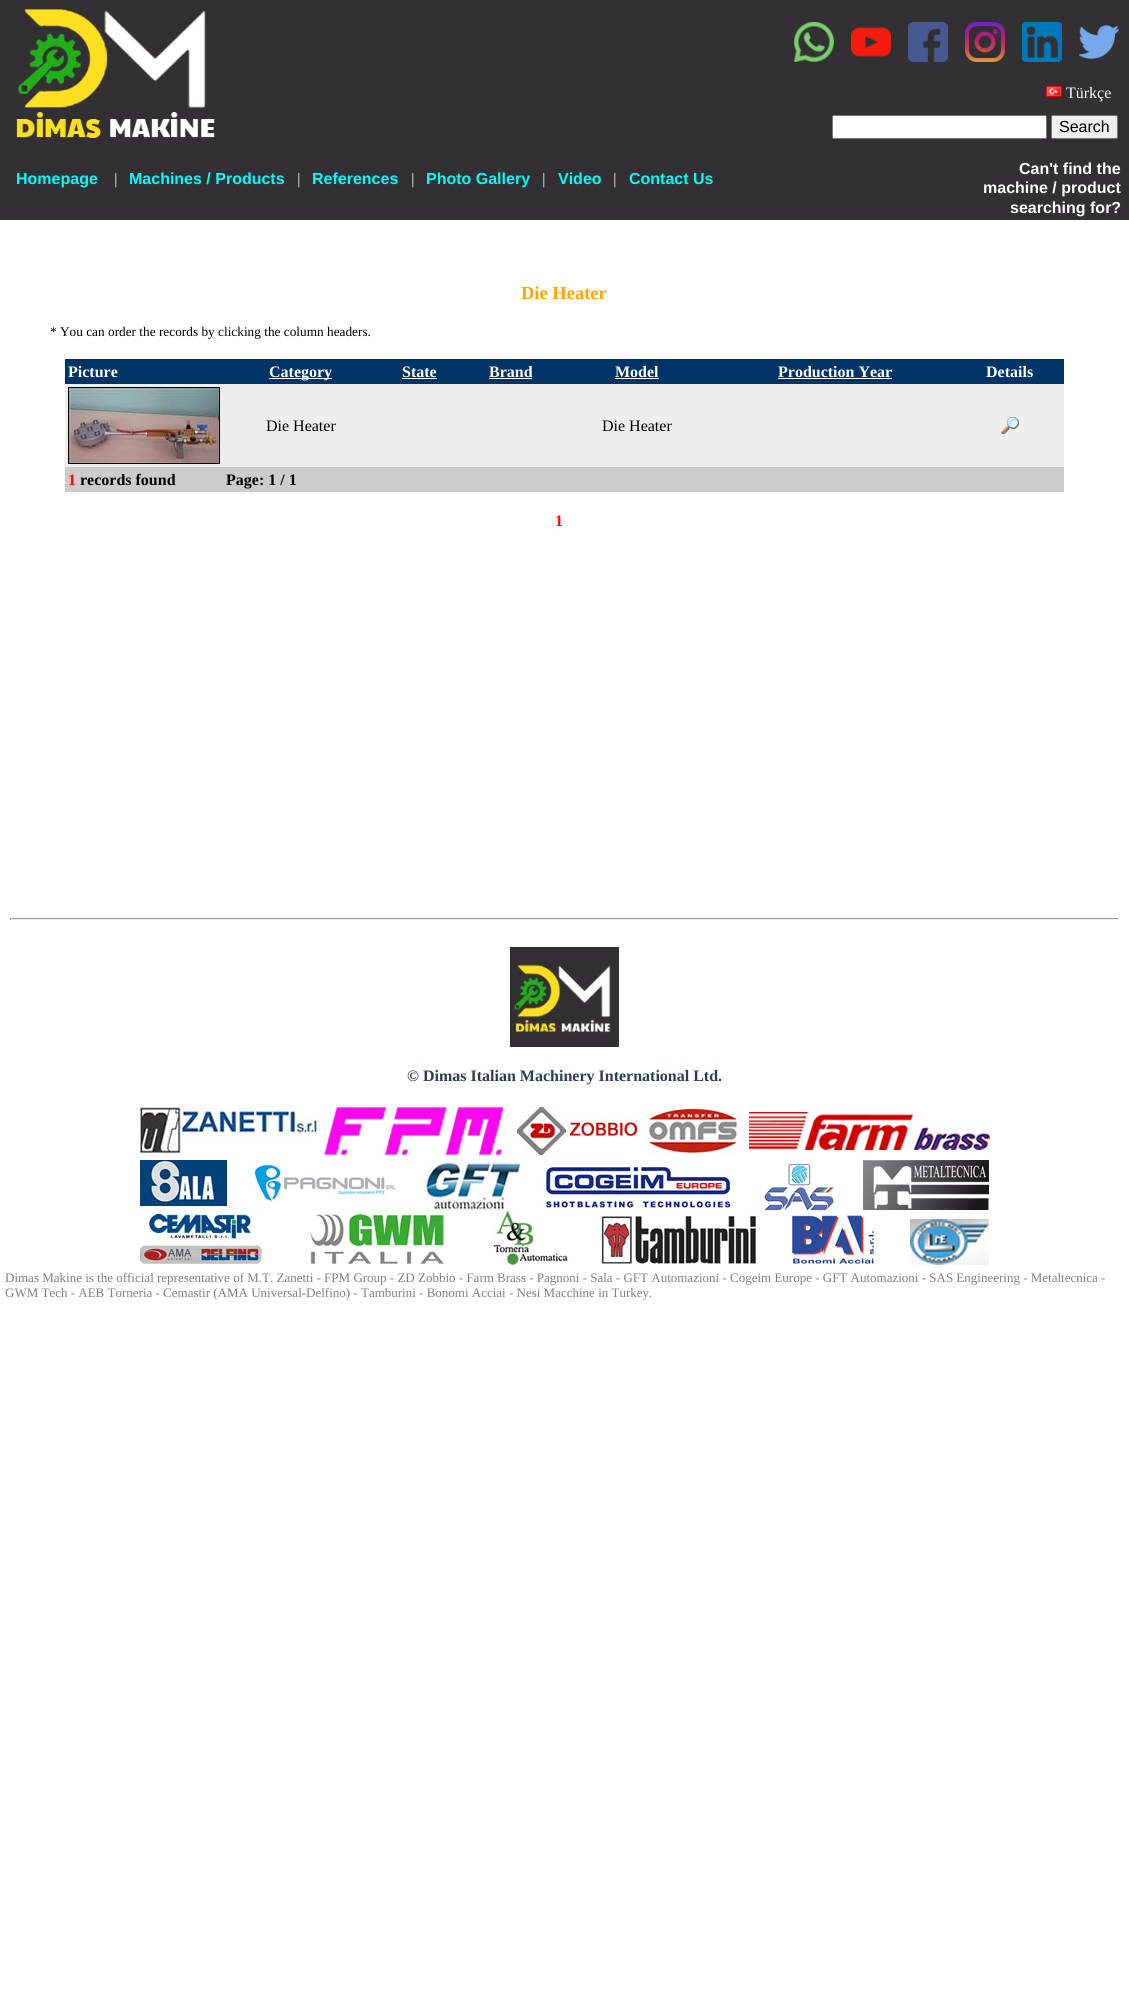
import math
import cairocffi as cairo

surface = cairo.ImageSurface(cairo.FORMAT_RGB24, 1129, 2009)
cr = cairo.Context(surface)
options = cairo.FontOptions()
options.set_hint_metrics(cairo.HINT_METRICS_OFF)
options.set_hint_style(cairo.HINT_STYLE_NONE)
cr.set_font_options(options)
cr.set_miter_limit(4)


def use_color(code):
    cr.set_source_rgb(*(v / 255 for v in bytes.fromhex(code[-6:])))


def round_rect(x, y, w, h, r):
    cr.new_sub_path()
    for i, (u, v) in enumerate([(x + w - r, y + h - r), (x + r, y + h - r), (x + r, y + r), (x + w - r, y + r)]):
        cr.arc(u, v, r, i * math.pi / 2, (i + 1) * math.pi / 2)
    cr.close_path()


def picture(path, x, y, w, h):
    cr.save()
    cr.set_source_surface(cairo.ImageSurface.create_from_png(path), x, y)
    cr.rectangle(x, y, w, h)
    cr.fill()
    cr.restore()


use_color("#ffffff")
cr.paint()
use_color("#333033")
cr.rectangle(0, 0, 1129, 220)
cr.fill()
picture("img1.png", 16, 9, 199, 129)
picture("img2.png", 794, 22, 40, 40)
picture("img3.png", 851, 26, 40, 32)
picture("img4.png", 908, 22, 40, 40)
picture("img5.png", 965, 22, 40, 40)
picture("img6.png", 1022, 22, 40, 40)
picture("img7.png", 1079, 25, 40, 34)
picture("img8.png", 1046, 86, 16, 11)
cr.select_font_face("Liberation Serif")
cr.set_font_size(16)
use_color("#ffffff")
cr.move_to(1066, 98)
cr.show_text("Türkçe")
round_rect(832.5, 115.5, 214, 23, 1.5)
cr.fill_preserve()
use_color("#767676")
cr.set_line_width(1)
cr.stroke()
use_color("#efefef")
round_rect(1051.5, 115.5, 66, 23, 1.5)
cr.fill_preserve()
use_color("#767676")
cr.stroke()
cr.select_font_face("Liberation Sans")
use_color("#000000")
cr.move_to(1059, 132)
cr.show_text("Search")
cr.select_font_face("Liberation Sans", cairo.FONT_SLANT_NORMAL, cairo.FONT_WEIGHT_BOLD)
use_color("#00ffff")
cr.move_to(16, 184)
cr.show_text("Homepage")
cr.select_font_face("Liberation Serif", cairo.FONT_SLANT_NORMAL, cairo.FONT_WEIGHT_BOLD)
use_color("#c0c0c0")
cr.move_to(114, 184)
cr.show_text("|")
cr.select_font_face("Liberation Sans", cairo.FONT_SLANT_NORMAL, cairo.FONT_WEIGHT_BOLD)
use_color("#00ffff")
cr.move_to(129, 184)
cr.show_text("Machines / Products")
cr.select_font_face("Liberation Serif", cairo.FONT_SLANT_NORMAL, cairo.FONT_WEIGHT_BOLD)
use_color("#c0c0c0")
cr.move_to(297, 184)
cr.show_text("|")
cr.select_font_face("Liberation Sans", cairo.FONT_SLANT_NORMAL, cairo.FONT_WEIGHT_BOLD)
use_color("#00ffff")
cr.move_to(312, 184)
cr.show_text("References")
cr.select_font_face("Liberation Serif", cairo.FONT_SLANT_NORMAL, cairo.FONT_WEIGHT_BOLD)
use_color("#c0c0c0")
cr.move_to(411, 184)
cr.show_text("|")
cr.select_font_face("Liberation Sans", cairo.FONT_SLANT_NORMAL, cairo.FONT_WEIGHT_BOLD)
use_color("#00ffff")
cr.move_to(426, 184)
cr.show_text("Photo Gallery")
cr.select_font_face("Liberation Serif", cairo.FONT_SLANT_NORMAL, cairo.FONT_WEIGHT_BOLD)
use_color("#c0c0c0")
cr.move_to(542, 184)
cr.show_text("|")
cr.select_font_face("Liberation Sans", cairo.FONT_SLANT_NORMAL, cairo.FONT_WEIGHT_BOLD)
use_color("#00ffff")
cr.move_to(558, 184)
cr.show_text("Video")
cr.select_font_face("Liberation Serif", cairo.FONT_SLANT_NORMAL, cairo.FONT_WEIGHT_BOLD)
use_color("#c0c0c0")
cr.move_to(613, 184)
cr.show_text("|")
cr.select_font_face("Liberation Sans", cairo.FONT_SLANT_NORMAL, cairo.FONT_WEIGHT_BOLD)
use_color("#00ffff")
cr.move_to(629, 184)
cr.show_text("Contact Us")
use_color("#ffffff")
cr.move_to(1019, 174)
cr.show_text("Can't find the")
cr.move_to(983, 193)
cr.show_text("machine / product")
cr.move_to(1010, 213)
cr.show_text("searching for?")
cr.select_font_face("Liberation Serif", cairo.FONT_SLANT_NORMAL, cairo.FONT_WEIGHT_BOLD)
cr.set_font_size(18.5)
use_color("#ffa500")
cr.move_to(521, 299)
cr.show_text("Die Heater")
cr.select_font_face("Liberation Serif")
cr.set_font_size(13.3)
use_color("#000000")
cr.move_to(50, 336)
cr.show_text("* You can order the records by clicking the column headers.")
use_color("#003366")
cr.rectangle(65, 359, 999, 25)
cr.fill()
cr.select_font_face("Liberation Serif", cairo.FONT_SLANT_NORMAL, cairo.FONT_WEIGHT_BOLD)
cr.set_font_size(16)
use_color("#ffffff")
cr.move_to(68, 377)
cr.show_text("Picture")
cr.rectangle(269, 378, 63, 1)
cr.fill()
cr.move_to(269, 377)
cr.show_text("Category")
cr.move_to(402, 377)
cr.show_text("State")
cr.rectangle(402, 378, 35, 1)
cr.fill()
cr.move_to(489, 377)
cr.show_text("Brand")
cr.rectangle(489, 378, 43, 1)
cr.fill()
cr.move_to(615, 377)
cr.show_text("Model")
cr.rectangle(615, 378, 44, 1)
cr.fill()
cr.move_to(778, 377)
cr.show_text("Production Year")
cr.rectangle(778, 378, 114, 1)
cr.fill()
cr.move_to(986, 377)
cr.show_text("Details")
use_color("#eeeeee")
cr.rectangle(65, 384, 999, 83)
cr.fill()
cr.rectangle(68.5, 387.5, 151, 76)
use_color("#000000")
cr.stroke()
picture("img9.png", 69, 388, 150, 75)
cr.select_font_face("Liberation Serif")
cr.move_to(266, 431)
cr.show_text("Die Heater")
cr.move_to(602, 431)
cr.show_text("Die Heater")
picture("img10.png", 1001, 417, 18, 17)
use_color("#cccccc")
cr.rectangle(65, 467, 999, 25)
cr.fill()
cr.select_font_face("Liberation Serif", cairo.FONT_SLANT_NORMAL, cairo.FONT_WEIGHT_BOLD)
use_color("#ff0000")
cr.move_to(68, 485)
cr.show_text("1")
use_color("#000000")
cr.move_to(80, 485)
cr.show_text("records found")
cr.move_to(226, 485)
cr.show_text("Page: 1 / 1")
use_color("#ff0000")
cr.move_to(555, 526)
cr.show_text("1")
use_color("#9f9f9f")
cr.rectangle(10, 918, 1109, 1)
cr.fill()
use_color("#eeeeee")
cr.rectangle(1118, 918, 1, 2)
cr.fill()
cr.rectangle(10, 919, 1109, 1)
cr.fill()
use_color("#9f9f9f")
cr.rectangle(10, 918, 1, 2)
cr.fill()
picture("img11.png", 510, 947, 109, 100)
use_color("#2c3e56")
cr.move_to(407, 1081)
cr.show_text("© Dimas Italian Machinery International Ltd.")
picture("img12.png", 140, 1105, 850, 160)
cr.select_font_face("Liberation Serif")
cr.set_font_size(13)
use_color("#808080")
cr.move_to(5, 1282)
cr.show_text("Dimas Makine is the official representative of M.T. Zanetti - FPM Group - ZD Zobbio - Farm Brass - Pagnoni - Sala - GFT Automazioni - Cogeim Europe - GFT Automazioni - SAS Engineering - Metaltecnica -")
cr.move_to(5, 1297)
cr.show_text("GWM Tech - AEB Torneria - Cemastir (AMA Universal-Delfino) - Tamburini - Bonomi Acciai - Nesi Macchine in Turkey.")
surface.write_to_png("result.png")
